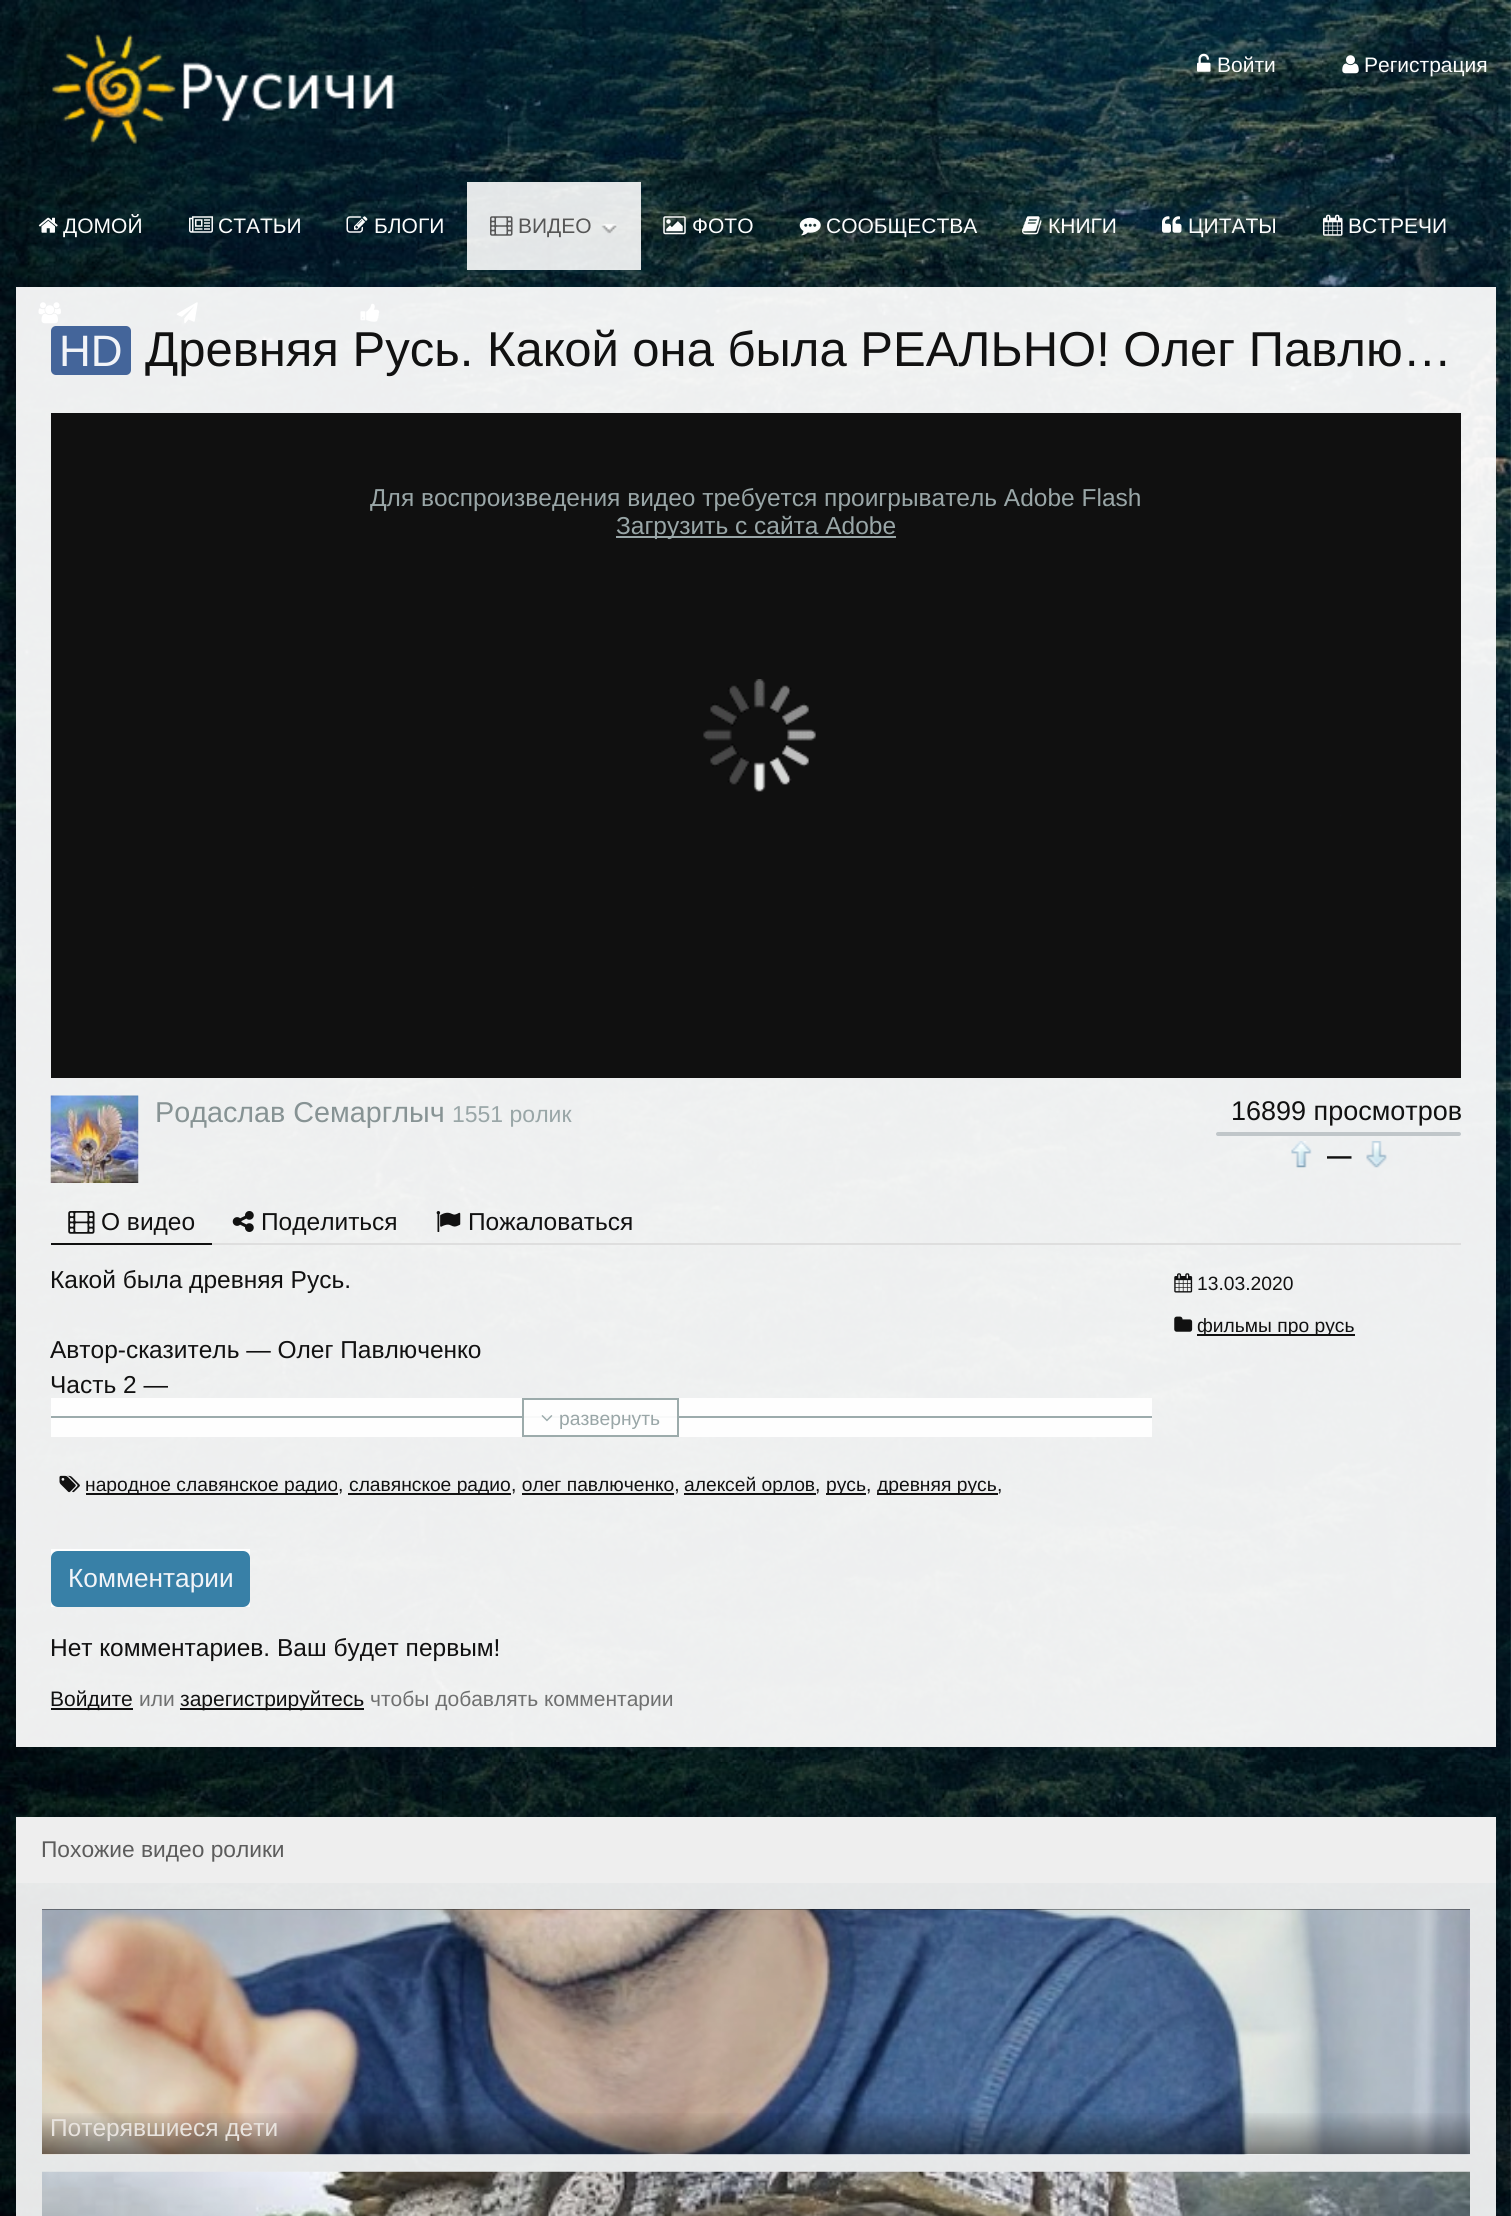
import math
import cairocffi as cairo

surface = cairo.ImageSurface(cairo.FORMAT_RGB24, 1511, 2216)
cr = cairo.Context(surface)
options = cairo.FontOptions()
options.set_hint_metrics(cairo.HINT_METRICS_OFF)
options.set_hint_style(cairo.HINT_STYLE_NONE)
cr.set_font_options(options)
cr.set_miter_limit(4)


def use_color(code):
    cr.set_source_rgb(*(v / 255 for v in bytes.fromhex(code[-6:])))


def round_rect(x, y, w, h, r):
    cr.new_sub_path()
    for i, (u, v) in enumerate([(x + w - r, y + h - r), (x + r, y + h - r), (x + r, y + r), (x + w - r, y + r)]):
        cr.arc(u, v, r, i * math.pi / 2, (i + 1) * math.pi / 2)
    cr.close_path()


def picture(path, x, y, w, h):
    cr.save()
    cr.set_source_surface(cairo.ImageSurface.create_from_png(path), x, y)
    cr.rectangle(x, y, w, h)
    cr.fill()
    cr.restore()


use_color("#ffffff")
cr.paint()
picture("img1.png", 0, 0, 1511, 2216)
picture("img2.png", 52, 34, 343, 110)
picture("img3.png", 1197, 53, 14, 19)
cr.select_font_face("Liberation Sans")
cr.set_font_size(21)
use_color("#fcfdfd")
cr.move_to(1217, 72)
cr.show_text("Войти")
picture("img4.png", 1342, 55, 17, 19)
cr.move_to(1364, 72)
cr.show_text("Регистрация")
picture("img5.png", 38, 217, 20, 16)
cr.move_to(63, 233)
cr.show_text("ДОМОЙ")
picture("img6.png", 189, 216, 24, 17)
cr.move_to(218, 233)
cr.show_text("СТАТЬИ")
picture("img7.png", 346, 216, 22, 17)
cr.move_to(374, 233)
cr.show_text("БЛОГИ")
cr.set_source_rgba(1, 1, 1, 0.89)
cr.rectangle(467, 182, 174, 88)
cr.fill()
picture("img8.png", 601, 224, 16, 10)
picture("img9.png", 490, 216, 23, 20)
use_color("#565656")
cr.move_to(518, 233)
cr.show_text("ВИДЕО")
picture("img10.png", 663, 216, 23, 19)
use_color("#fcfdfd")
cr.move_to(692, 233)
cr.show_text("ФОТО")
picture("img11.png", 799, 217, 22, 19)
cr.move_to(826, 233)
cr.show_text("СООБЩЕСТВА")
picture("img12.png", 1022, 216, 20, 19)
cr.move_to(1048, 233)
cr.show_text("КНИГИ")
picture("img13.png", 1162, 216, 20, 17)
cr.move_to(1188, 233)
cr.show_text("ЦИТАТЫ")
picture("img14.png", 1323, 214, 20, 22)
cr.move_to(1348, 233)
cr.show_text("ВСТРЕЧИ")
picture("img15.png", 38, 302, 23, 22)
picture("img16.png", 176, 302, 22, 22)
picture("img17.png", 360, 303, 20, 19)
cr.set_source_rgba(1, 1, 1, 0.93)
cr.rectangle(16, 287, 1480, 1460)
cr.fill()
cr.set_source_rgba(0.22, 0.361, 0.58, 0.93)
round_rect(51, 326, 80, 49, 5)
cr.fill()
cr.set_font_size(44)
use_color("#f2f4f8")
cr.move_to(59, 366)
cr.show_text("HD")
cr.set_font_size(49)
use_color("#111111")
cr.move_to(145, 366)
cr.show_text("Древняя Русь. Какой она была РЕАЛЬНО! Олег Павлю…")
cr.set_source_rgba(0, 0, 0, 0.93)
cr.rectangle(51, 413, 1410, 665)
cr.fill()
cr.set_font_size(24.5)
use_color("#99a6a7")
cr.move_to(370, 506)
cr.show_text("Для воспроизведения видео требуется проигрыватель Adobe Flash")
cr.rectangle(616, 536, 280, 2)
cr.fill()
cr.move_to(616, 534)
cr.show_text("Загрузить с сайта Adobe")
picture("img18.png", 703, 679, 113, 113)
picture("img19.png", 50, 1095, 89, 88)
cr.set_font_size(28.75)
use_color("#879394")
cr.move_to(155, 1122)
cr.show_text("Родаслав Семарглыч")
cr.set_font_size(23)
use_color("#99a6a7")
cr.move_to(452, 1122)
cr.show_text("1551 ролик")
cr.set_font_size(27)
use_color("#111111")
cr.move_to(1231, 1120)
cr.show_text("16899 просмотров")
cr.set_source_rgba(0.741, 0.765, 0.78, 0.93)
round_rect(1216, 1132, 245, 4, 2)
cr.fill()
picture("img20.png", 1291, 1141, 21, 27)
cr.select_font_face("Liberation Sans", cairo.FONT_SLANT_NORMAL, cairo.FONT_WEIGHT_BOLD)
cr.set_font_size(24.5)
use_color("#111111")
cr.move_to(1327, 1164)
cr.show_text("—")
picture("img21.png", 1366, 1141, 21, 27)
cr.set_source_rgba(0.867, 0.867, 0.867, 0.93)
cr.rectangle(212, 1243, 1249, 2)
cr.fill()
use_color("#101010")
cr.rectangle(51, 1243, 161, 2)
cr.fill()
picture("img22.png", 68, 1211, 27, 23)
cr.select_font_face("Liberation Sans")
use_color("#111111")
cr.move_to(101, 1230)
cr.show_text("О видео")
picture("img23.png", 232, 1211, 22, 21)
cr.move_to(261, 1230)
cr.show_text("Поделиться")
picture("img24.png", 436, 1211, 25, 21)
cr.move_to(468, 1230)
cr.show_text("Пожаловаться")
cr.move_to(50, 1288)
cr.show_text("Какой была древняя Русь.")
cr.move_to(50, 1358)
cr.show_text("Автор-сказитель — Олег Павлюченко")
cr.move_to(50, 1393)
cr.show_text("Часть 2 —")
cr.set_source_rgba(1, 1, 1, 0.93)
cr.rectangle(51, 1398, 1101, 39)
cr.fill()
use_color("#9cabac")
cr.rectangle(51, 1416, 1101, 2)
cr.fill()
cr.set_source_rgba(1, 1, 1, 0.93)
cr.rectangle(522, 1416, 157, 2)
cr.fill()
cr.rectangle(523, 1399, 155, 37)
cr.set_source_rgba(0.584, 0.647, 0.651, 0.93)
cr.stroke()
picture("img25.png", 541, 1415, 12, 7)
cr.set_font_size(19.25)
use_color("#99a6a7")
cr.move_to(559, 1425)
cr.show_text("развернуть")
picture("img26.png", 59, 1475, 21, 18)
use_color("#111111")
cr.rectangle(86, 1493, 252, 2)
cr.fill()
cr.move_to(85, 1491)
cr.show_text("народное славянское радио")
cr.move_to(338, 1491)
cr.show_text(",")
cr.rectangle(348, 1493, 163, 2)
cr.fill()
cr.move_to(349, 1491)
cr.show_text("славянское радио")
cr.move_to(511, 1491)
cr.show_text(", олег павлюченко,")
cr.set_source_rgba(0, 0, 0, 0.93)
cr.rectangle(684, 1493, 132, 2)
cr.fill()
use_color("#111111")
cr.move_to(684, 1491)
cr.show_text("алексей орлов,")
cr.rectangle(826, 1493, 40, 2)
cr.fill()
cr.move_to(826, 1491)
cr.show_text("русь")
cr.move_to(866, 1491)
cr.show_text(",")
cr.rectangle(877, 1493, 121, 2)
cr.fill()
cr.move_to(877, 1491)
cr.show_text("древняя русь")
cr.move_to(997, 1491)
cr.show_text(",")
cr.rectangle(522, 1493, 152, 2)
cr.fill()
picture("img27.png", 1174, 1273, 19, 20)
cr.move_to(1197, 1290)
cr.show_text("13.03.2020")
picture("img28.png", 1174, 1316, 19, 16)
cr.set_source_rgba(0, 0, 0, 0.93)
cr.rectangle(1197, 1334, 158, 2)
cr.fill()
use_color("#111111")
cr.move_to(1197, 1332)
cr.show_text("фильмы про русь")
cr.set_source_rgba(1, 1, 1, 0.93)
cr.rectangle(51, 1549, 199, 58)
cr.fill()
use_color("#3880a7")
round_rect(51, 1551, 199, 56, 7)
cr.fill()
cr.set_font_size(26.25)
use_color("#f2f4f8")
cr.move_to(68, 1587)
cr.show_text("Комментарии")
cr.set_font_size(24.5)
use_color("#111111")
cr.move_to(50, 1656)
cr.show_text("Нет комментариев. Ваш будет первым!")
cr.rectangle(51, 1708, 82, 2)
cr.fill()
cr.set_font_size(21)
cr.move_to(50, 1706)
cr.show_text("Войдите")
use_color("#6f7070")
cr.move_to(139, 1706)
cr.show_text("или")
cr.set_source_rgba(0, 0, 0, 0.93)
cr.rectangle(180, 1708, 184, 2)
cr.fill()
use_color("#111111")
cr.move_to(180, 1706)
cr.show_text("зарегистрируйтесь")
use_color("#6f7070")
cr.move_to(370, 1706)
cr.show_text("чтобы добавлять комментарии")
cr.set_source_rgba(1, 1, 1, 0.9)
cr.rectangle(16, 1817, 1480, 399)
cr.fill()
cr.set_source_rgba(0.937, 0.937, 0.937, 0.9)
cr.rectangle(16, 1817, 1480, 66)
cr.fill()
cr.set_font_size(22.75)
use_color("#5c5c5c")
cr.move_to(41, 1857)
cr.show_text("Похожие видео ролики")
cr.set_source_rgba(0, 0, 0, 0.9)
cr.rectangle(42, 1909, 1428, 245)
cr.fill()
picture("img29.png", 42, 1909, 1428, 246)
gradient = cairo.LinearGradient(756, 2111, 756, 2154)
gradient.add_color_stop_rgba(0, 0, 0, 0, 0)
gradient.add_color_stop_rgba(1, 0, 0, 0, 0.47)
cr.set_source(gradient)
cr.rectangle(42, 2113, 1428, 41)
cr.fill()
cr.set_font_size(24.5)
use_color("#e8e3de")
cr.move_to(50, 2136)
cr.show_text("Потерявшиеся дети")
picture("img30.png", 42, 2171, 1428, 45)
surface.write_to_png("result.png")
